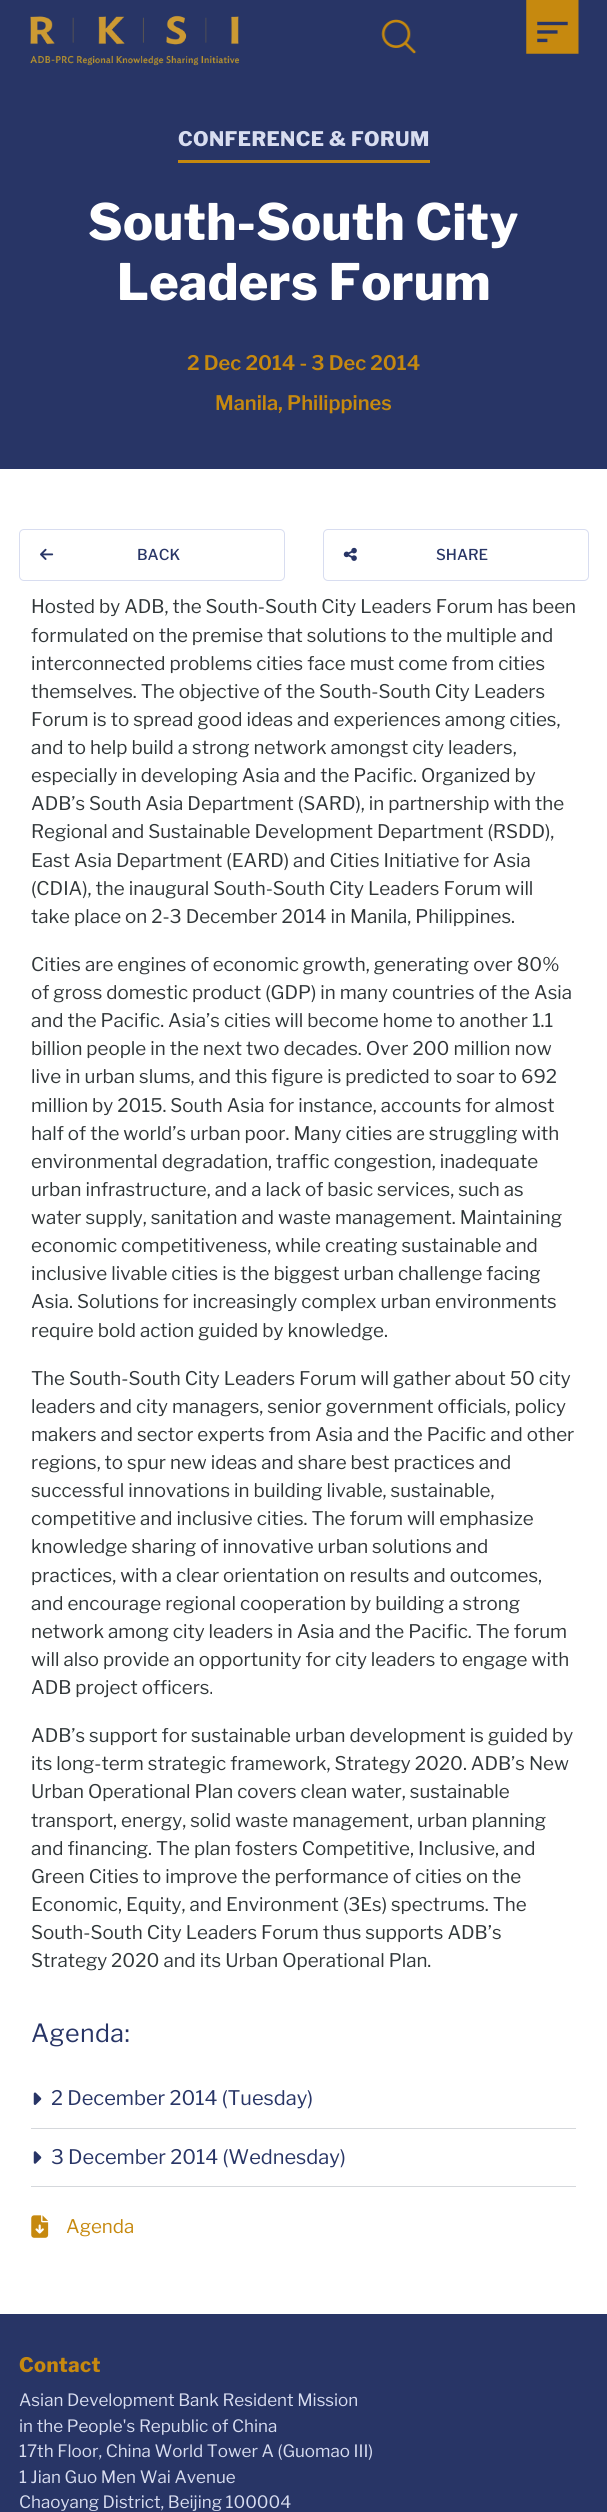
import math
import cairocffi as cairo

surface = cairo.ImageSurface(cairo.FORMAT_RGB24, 607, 2512)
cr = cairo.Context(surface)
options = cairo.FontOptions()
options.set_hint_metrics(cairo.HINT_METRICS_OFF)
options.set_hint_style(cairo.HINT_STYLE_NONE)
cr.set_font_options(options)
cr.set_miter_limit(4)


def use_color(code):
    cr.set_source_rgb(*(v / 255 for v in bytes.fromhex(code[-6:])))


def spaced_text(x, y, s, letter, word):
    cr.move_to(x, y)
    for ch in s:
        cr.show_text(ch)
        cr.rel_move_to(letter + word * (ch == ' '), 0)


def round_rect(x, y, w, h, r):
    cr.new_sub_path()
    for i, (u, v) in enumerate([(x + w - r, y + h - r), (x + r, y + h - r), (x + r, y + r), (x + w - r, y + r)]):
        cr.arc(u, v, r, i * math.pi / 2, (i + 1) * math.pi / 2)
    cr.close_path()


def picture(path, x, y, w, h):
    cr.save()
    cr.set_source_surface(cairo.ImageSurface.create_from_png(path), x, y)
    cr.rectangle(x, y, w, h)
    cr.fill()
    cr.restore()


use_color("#ffffff")
cr.paint()
use_color("#283566")
cr.rectangle(0, 0, 607, 469)
cr.fill()
picture("img1.png", 30, 15, 210, 51)
picture("img2.png", 381, 19, 36, 35)
picture("img3.png", 526, 0, 53, 54)
use_color("#c6890f")
cr.rectangle(178, 160, 252, 3)
cr.fill()
cr.select_font_face("Libre Franklin ExtraBold")
cr.set_font_size(20)
use_color("#d8ddf0")
spaced_text(178, 146, "CONFERENCE & FORUM", 0.4, 0)
cr.set_font_size(50)
use_color("#ffffff")
spaced_text(88, 240, "South-South City", 0.4, 0)
spaced_text(117, 300, "Leaders Forum", 0.4, 0)
cr.select_font_face("Libre Franklin SemiBold")
cr.set_font_size(20)
use_color("#c6890f")
cr.move_to(187, 370)
cr.show_text("2 Dec 2014 - 3 Dec 2014")
cr.move_to(215, 410)
cr.show_text("Manila, Philippines")
round_rect(19.5, 529.5, 265, 51, 4.5)
use_color("#d8ddf0")
cr.set_line_width(1)
cr.stroke()
picture("img4.png", 40, 548, 14, 12)
cr.select_font_face("Libre Franklin Medium")
cr.set_font_size(15)
use_color("#283566")
cr.move_to(137, 560)
cr.show_text("BACK")
round_rect(323.5, 529.5, 265, 51, 4.5)
use_color("#d8ddf0")
cr.stroke()
picture("img5.png", 343, 547, 14, 14)
use_color("#283566")
cr.move_to(436, 560)
cr.show_text("SHARE")
cr.select_font_face("Libre Franklin")
cr.set_font_size(18.75)
use_color("#313739")
cr.move_to(31, 613)
cr.show_text("Hosted by ADB, the South-South City Leaders Forum has been")
cr.move_to(31, 642)
cr.show_text("formulated on the premise that solutions to the multiple and")
cr.move_to(31, 670)
cr.show_text("interconnected problems cities face must come from cities")
cr.move_to(31, 698)
cr.show_text("themselves. The objective of the South-South City Leaders")
cr.move_to(31, 726)
cr.show_text("Forum is to spread good ideas and experiences among cities,")
cr.move_to(31, 754)
cr.show_text("and to help build a strong network amongst city leaders,")
cr.move_to(31, 782)
cr.show_text("especially in developing Asia and the Pacific. Organized by")
cr.move_to(31, 810)
cr.show_text("ADB’s South Asia Department (SARD), in partnership with the")
cr.move_to(31, 838)
cr.show_text("Regional and Sustainable Development Department (RSDD),")
cr.move_to(31, 867)
cr.show_text("East Asia Department (EARD) and Cities Initiative for Asia")
cr.move_to(31, 895)
cr.show_text("(CDIA), the inaugural South-South City Leaders Forum will")
cr.move_to(31, 923)
cr.show_text("take place on 2-3 December 2014 in Manila, Philippines.")
cr.move_to(31, 971)
cr.show_text("Cities are engines of economic growth, generating over 80%")
cr.move_to(31, 999)
cr.show_text("of gross domestic product (GDP) in many countries of the Asia")
cr.move_to(31, 1027)
cr.show_text("and the Pacific. Asia’s cities will become home to another 1.1")
cr.move_to(31, 1055)
cr.show_text("billion people in the next two decades. Over 200 million now")
cr.move_to(31, 1083)
cr.show_text("live in urban slums, and this figure is predicted to soar to 692")
cr.move_to(31, 1112)
cr.show_text("million by 2015. South Asia for instance, accounts for almost")
cr.move_to(31, 1140)
cr.show_text("half of the world’s urban poor. Many cities are struggling with")
cr.move_to(31, 1168)
cr.show_text("environmental degradation, traffic congestion, inadequate")
cr.move_to(31, 1196)
cr.show_text("urban infrastructure, and a lack of basic services, such as")
cr.move_to(31, 1224)
cr.show_text("water supply, sanitation and waste management. Maintaining")
cr.move_to(31, 1252)
cr.show_text("economic competitiveness, while creating sustainable and")
cr.move_to(31, 1280)
cr.show_text("inclusive livable cities is the biggest urban challenge facing")
cr.move_to(31, 1308)
cr.show_text("Asia. Solutions for increasingly complex urban environments")
cr.move_to(31, 1337)
cr.show_text("require bold action guided by knowledge.")
cr.move_to(31, 1385)
cr.show_text("The South-South City Leaders Forum will gather about 50 city")
cr.move_to(31, 1413)
cr.show_text("leaders and city managers, senior government officials, policy")
cr.move_to(31, 1441)
cr.show_text("makers and sector experts from Asia and the Pacific and other")
cr.move_to(31, 1469)
cr.show_text("regions, to spur new ideas and share best practices and")
cr.move_to(31, 1497)
cr.show_text("successful innovations in building livable, sustainable,")
cr.move_to(31, 1525)
cr.show_text("competitive and inclusive cities. The forum will emphasize")
cr.move_to(31, 1553)
cr.show_text("knowledge sharing of innovative urban solutions and")
cr.move_to(31, 1582)
cr.show_text("practices, with a clear orientation on results and outcomes,")
cr.move_to(31, 1610)
cr.show_text("and encourage regional cooperation by building a strong")
cr.move_to(31, 1638)
cr.show_text("network among city leaders in Asia and the Pacific. The forum")
cr.move_to(31, 1666)
cr.show_text("will also provide an opportunity for city leaders to engage with")
cr.move_to(31, 1694)
cr.show_text("ADB project officers.")
cr.move_to(31, 1742)
cr.show_text("ADB’s support for sustainable urban development is guided by")
cr.move_to(31, 1770)
cr.show_text("its long-term strategic framework, Strategy 2020. ADB’s New")
cr.move_to(31, 1798)
cr.show_text("Urban Operational Plan covers clean water, sustainable")
cr.move_to(31, 1827)
cr.show_text("transport, energy, solid waste management, urban planning")
cr.move_to(31, 1855)
cr.show_text("and financing. The plan fosters Competitive, Inclusive, and")
cr.move_to(31, 1883)
cr.show_text("Green Cities to improve the performance of cities on the")
cr.move_to(31, 1911)
cr.show_text("Economic, Equity, and Environment (3Es) spectrums. The")
cr.move_to(31, 1939)
cr.show_text("South-South City Leaders Forum thus supports ADB’s")
cr.move_to(31, 1967)
cr.show_text("Strategy 2020 and its Urban Operational Plan.")
cr.set_font_size(25)
use_color("#283566")
spaced_text(31, 2042, "Agenda:", 0.4, 0)
use_color("#d5d8dc")
cr.rectangle(31, 2128, 545, 1)
cr.fill()
picture("img6.png", 33, 2092, 9, 13)
cr.set_font_size(20)
use_color("#283566")
cr.move_to(51, 2105)
cr.show_text("2 December 2014 (Tuesday)")
use_color("#d5d8dc")
cr.rectangle(31, 2186, 545, 1)
cr.fill()
picture("img7.png", 33, 2151, 9, 13)
use_color("#283566")
cr.move_to(51, 2164)
cr.show_text("3 December 2014 (Wednesday)")
picture("img8.png", 31, 2215, 18, 23)
cr.set_font_size(18.75)
use_color("#c6890f")
cr.move_to(66, 2233)
cr.show_text("Agenda")
use_color("#283566")
cr.rectangle(0, 2314, 607, 198)
cr.fill()
cr.select_font_face("Libre Franklin ExtraBold")
cr.set_font_size(20)
use_color("#c6890f")
spaced_text(19, 2372, "Contact", 0.4, 0)
cr.select_font_face("Libre Franklin")
cr.set_font_size(17)
use_color("#d8ddf0")
cr.move_to(19, 2406)
cr.show_text("Asian Development Bank Resident Mission")
cr.move_to(19, 2432)
cr.show_text("in the People's Republic of China")
cr.move_to(19, 2457)
cr.show_text("17th Floor, China World Tower A (Guomao III)")
cr.move_to(19, 2483)
cr.show_text("1 Jian Guo Men Wai Avenue")
cr.move_to(19, 2508)
cr.show_text("Chaoyang District, Beijing 100004")
surface.write_to_png("result.png")
